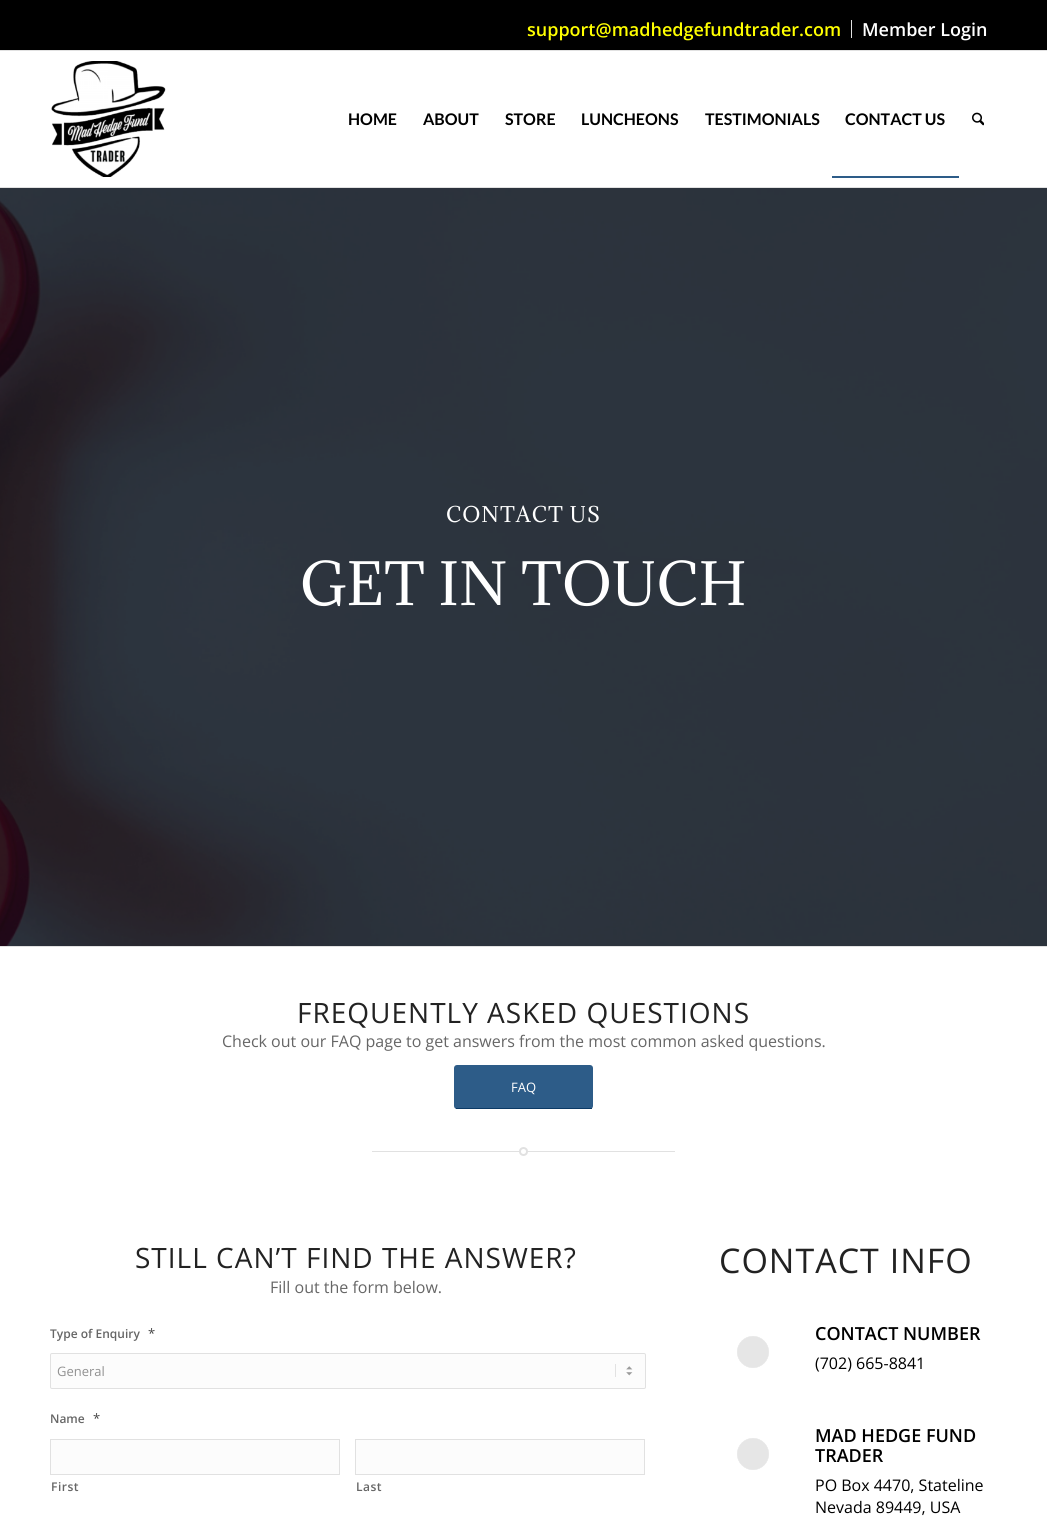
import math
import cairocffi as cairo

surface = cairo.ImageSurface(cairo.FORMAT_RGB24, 1047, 1518)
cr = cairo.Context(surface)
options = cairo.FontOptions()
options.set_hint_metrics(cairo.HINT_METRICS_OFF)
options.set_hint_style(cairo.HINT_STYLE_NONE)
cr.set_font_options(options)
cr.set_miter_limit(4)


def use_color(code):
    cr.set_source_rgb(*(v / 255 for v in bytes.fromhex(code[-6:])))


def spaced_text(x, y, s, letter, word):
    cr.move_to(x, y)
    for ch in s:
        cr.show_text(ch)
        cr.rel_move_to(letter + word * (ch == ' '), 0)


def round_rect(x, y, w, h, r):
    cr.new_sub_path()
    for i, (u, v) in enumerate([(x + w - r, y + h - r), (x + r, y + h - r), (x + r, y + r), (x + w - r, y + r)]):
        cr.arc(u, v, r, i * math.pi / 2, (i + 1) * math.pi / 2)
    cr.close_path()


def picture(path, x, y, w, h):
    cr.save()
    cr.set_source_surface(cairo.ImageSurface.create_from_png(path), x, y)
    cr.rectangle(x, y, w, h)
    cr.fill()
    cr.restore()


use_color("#ffffff")
cr.paint()
use_color("#000000")
cr.rectangle(0, 0, 1047, 50)
cr.fill()
use_color("#e1e1e1")
cr.rectangle(0, 50, 1047, 1)
cr.fill()
cr.rectangle(851, 20, 1, 18)
cr.fill()
cr.select_font_face("Open Sans SemiBold")
cr.set_font_size(18)
use_color("#ffff00")
cr.move_to(527, 36)
cr.show_text("support@madhedgefundtrader.com")
use_color("#ffffff")
cr.move_to(862, 36)
cr.show_text("Member Login")
use_color("#e1e1e1")
cr.rectangle(0, 187, 1047, 1)
cr.fill()
picture("img1.png", 51, 61, 115, 116)
cr.select_font_face("Lato", cairo.FONT_SLANT_NORMAL, cairo.FONT_WEIGHT_BOLD)
cr.set_font_size(16)
use_color("#000000")
cr.move_to(348, 125)
cr.show_text("HOME")
cr.move_to(423, 125)
cr.show_text("ABOUT")
cr.move_to(505, 125)
cr.show_text("STORE")
cr.move_to(581, 125)
cr.show_text("LUNCHEONS")
cr.move_to(705, 125)
cr.show_text("TESTIMONIALS")
cr.move_to(845, 125)
cr.show_text("CONTACT US")
use_color("#2d5c88")
cr.rectangle(832, 176, 127, 2)
cr.fill()
picture("img2.png", 972, 112, 12, 14)
picture("img3.png", 0, 188, 1047, 758)
cr.select_font_face("Adamina")
cr.set_font_size(20)
use_color("#ffffff")
spaced_text(446, 522, "CONTACT US", 1, 0)
cr.set_font_size(55)
cr.move_to(300, 605)
cr.show_text("GET IN TOUCH")
use_color("#e1e1e1")
cr.rectangle(0, 946, 1047, 1)
cr.fill()
cr.select_font_face("Open Sans")
cr.set_font_size(28)
use_color("#222222")
spaced_text(297, 1023, "FREQUENTLY ASKED QUESTIONS", 1, 0)
cr.set_font_size(16)
use_color("#666666")
cr.move_to(222, 1047)
cr.show_text("Check out our FAQ page to get answers from the most common asked questions.")
use_color("#2d5c88")
round_rect(454, 1065, 139, 44, 3)
cr.fill()
use_color("#0b3a66")
cr.rectangle(456, 1108, 136, 1)
cr.fill()
cr.set_font_size(13)
use_color("#ffffff")
cr.move_to(511, 1092)
cr.show_text("FAQ")
use_color("#e1e1e1")
cr.rectangle(372, 1151, 303, 1)
cr.fill()
use_color("#ffffff")
cr.arc(523.5, 1151.5, 3.5, 0, 2 * math.pi)
cr.fill_preserve()
use_color("#e1e1e1")
cr.stroke()
cr.set_font_size(28)
use_color("#222222")
spaced_text(135, 1268, "STILL CAN’T FIND THE ANSWER?", 1, 0)
cr.set_font_size(16)
use_color("#666666")
cr.move_to(270, 1293)
cr.show_text("Fill out the form below.")
cr.select_font_face("Open Sans SemiBold")
cr.set_font_size(12)
cr.move_to(50, 1338)
cr.show_text("Type of Enquiry")
cr.select_font_face("Open Sans")
cr.set_font_size(13)
use_color("#444444")
cr.move_to(148, 1338)
cr.show_text("*")
use_color("#fcfcfc")
round_rect(50, 1353, 596, 36, 2)
cr.fill()
picture("img4.png", 615, 1364, 18, 13)
round_rect(50.5, 1353.5, 595, 35, 1.5)
use_color("#e1e1e1")
cr.set_line_width(1)
cr.stroke()
use_color("#919191")
cr.move_to(57, 1376)
cr.show_text("General")
cr.select_font_face("Open Sans SemiBold")
cr.set_font_size(12)
use_color("#666666")
cr.move_to(50, 1423)
cr.show_text("Name")
cr.select_font_face("Open Sans")
cr.set_font_size(13)
use_color("#444444")
cr.move_to(93, 1423)
cr.show_text("*")
use_color("#fcfcfc")
cr.rectangle(50.5, 1439.5, 289, 35)
cr.fill_preserve()
use_color("#e1e1e1")
cr.stroke()
cr.select_font_face("Open Sans SemiBold")
cr.set_font_size(12)
use_color("#666666")
spaced_text(51, 1491, "First", 0.5, 0)
use_color("#fcfcfc")
cr.rectangle(355.5, 1439.5, 289, 35)
cr.fill_preserve()
use_color("#e1e1e1")
cr.stroke()
use_color("#666666")
spaced_text(356, 1491, "Last", 0.5, 0)
cr.select_font_face("Open Sans")
cr.set_font_size(34)
use_color("#222222")
spaced_text(719, 1273, "CONTACT INFO", 1, 0)
use_color("#e6e6e6")
cr.new_path()
cr.arc(753, 1352, 15.75, 0, 2 * math.pi)
cr.fill_preserve()
cr.set_line_width(0.5)
cr.stroke()
cr.select_font_face("Open Sans SemiBold")
cr.set_font_size(18)
use_color("#000000")
cr.move_to(815, 1340)
cr.show_text("CONTACT NUMBER")
cr.select_font_face("Open Sans")
cr.set_font_size(16)
cr.move_to(815, 1369)
cr.show_text("(702) 665-8841")
use_color("#e6e6e6")
cr.new_path()
cr.arc(753, 1454, 15.75, 0, 2 * math.pi)
cr.fill_preserve()
cr.stroke()
cr.select_font_face("Open Sans SemiBold")
cr.set_font_size(18)
use_color("#000000")
cr.move_to(815, 1442)
cr.show_text("MAD HEDGE FUND")
cr.move_to(815, 1462)
cr.show_text("TRADER")
cr.select_font_face("Open Sans")
cr.set_font_size(16)
cr.move_to(815, 1491)
cr.show_text("PO Box 4470, Stateline")
cr.move_to(815, 1513)
cr.show_text("Nevada 89449, USA")
surface.write_to_png("result.png")
